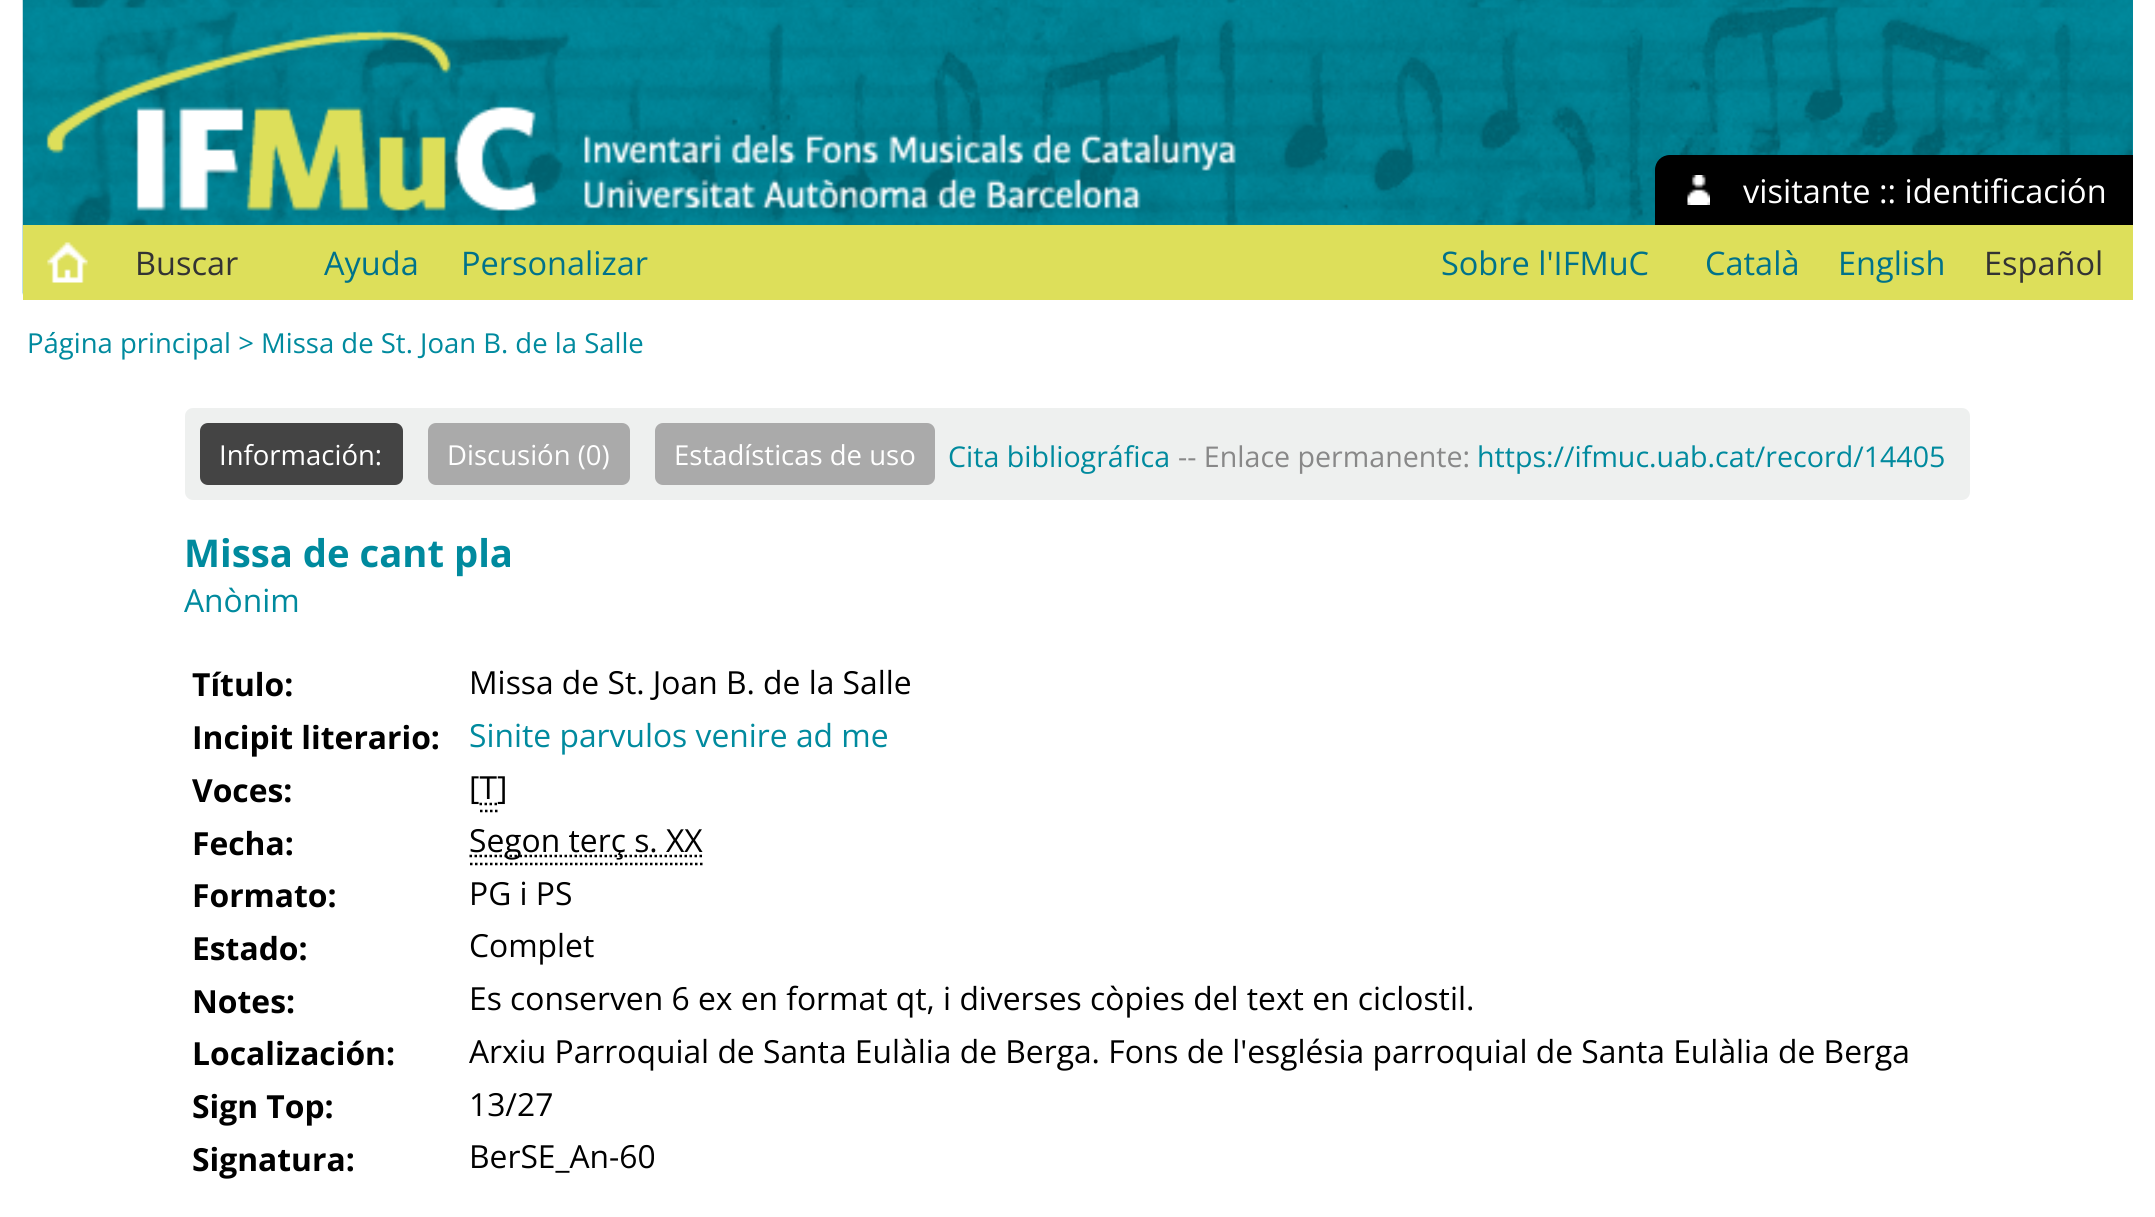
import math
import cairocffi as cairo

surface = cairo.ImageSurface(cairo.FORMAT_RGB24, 2155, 1217)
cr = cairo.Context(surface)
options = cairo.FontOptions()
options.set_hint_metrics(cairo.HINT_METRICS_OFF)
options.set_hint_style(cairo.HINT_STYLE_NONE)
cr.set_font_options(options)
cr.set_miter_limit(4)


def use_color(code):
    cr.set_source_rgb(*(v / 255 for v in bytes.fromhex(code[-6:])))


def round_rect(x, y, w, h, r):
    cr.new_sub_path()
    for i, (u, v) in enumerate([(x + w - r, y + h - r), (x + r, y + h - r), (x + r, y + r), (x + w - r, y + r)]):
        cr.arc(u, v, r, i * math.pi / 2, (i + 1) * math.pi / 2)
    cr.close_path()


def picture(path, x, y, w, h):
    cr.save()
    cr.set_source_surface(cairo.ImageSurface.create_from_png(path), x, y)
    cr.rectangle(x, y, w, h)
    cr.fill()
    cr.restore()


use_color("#ffffff")
cr.paint()
use_color("#00879a")
cr.rectangle(2132, 0, 1, 155)
cr.fill()
picture("img1.png", 22, 0, 2111, 295)
use_color("#000000")
cr.new_path()
cr.move_to(1670, 155)
cr.line_to(2133, 155)
cr.line_to(2133, 225)
cr.line_to(1655, 225)
cr.line_to(1655, 170)
cr.curve_to(1655, 161.5, 1661.5, 155, 1670, 155)
cr.close_path()
cr.fill()
picture("img2.png", 1687, 175, 23, 30)
cr.select_font_face("Open Sans")
cr.set_font_size(32.5)
use_color("#ffffff")
cr.move_to(1743, 203)
cr.show_text("visitante :: identificación")
use_color("#dddf5a")
cr.rectangle(23, 225, 2110, 75)
cr.fill()
picture("img3.png", 47, 242, 41, 41)
use_color("#333333")
cr.move_to(135, 275)
cr.show_text("Buscar")
use_color("#00728a")
cr.move_to(324, 275)
cr.show_text("Ayuda")
cr.move_to(461, 275)
cr.show_text("Personalizar")
cr.move_to(1441, 275)
cr.show_text("Sobre l'IFMuC")
cr.move_to(1705, 275)
cr.show_text("Català")
cr.move_to(1838, 275)
cr.show_text("English")
use_color("#333333")
cr.move_to(1984, 275)
cr.show_text("Español")
cr.set_font_size(27.5)
use_color("#008a9e")
cr.move_to(27, 353)
cr.show_text("Página principal > Missa de St. Joan B. de la Salle")
use_color("#eef0ef")
round_rect(185, 408, 1785, 92, 8)
cr.fill()
use_color("#444444")
round_rect(200, 423, 203, 62, 8)
cr.fill()
use_color("#ffffff")
cr.move_to(219, 465)
cr.show_text("Información:")
use_color("#aaaaaa")
round_rect(428, 423, 202, 62, 8)
cr.fill()
use_color("#ffffff")
cr.move_to(447, 465)
cr.show_text("Discusión (0)")
use_color("#aaaaaa")
round_rect(655, 423, 280, 62, 8)
cr.fill()
use_color("#ffffff")
cr.move_to(674, 465)
cr.show_text("Estadísticas de uso")
cr.set_font_size(28.6)
use_color("#008a9e")
cr.move_to(948, 467)
cr.show_text("Cita bibliográfica")
use_color("#888888")
cr.move_to(1178, 467)
cr.show_text("-- Enlace permanente:")
use_color("#008a9e")
cr.move_to(1477, 467)
cr.show_text("https://ifmuc.uab.cat/record/14405")
cr.select_font_face("Open Sans", cairo.FONT_SLANT_NORMAL, cairo.FONT_WEIGHT_BOLD)
cr.set_font_size(38.25)
cr.move_to(184, 567)
cr.show_text("Missa de cant pla")
cr.select_font_face("Open Sans")
cr.set_font_size(31.8)
cr.move_to(184, 612)
cr.show_text("Anònim")
cr.select_font_face("Open Sans", cairo.FONT_SLANT_NORMAL, cairo.FONT_WEIGHT_BOLD)
use_color("#000000")
cr.move_to(192, 696)
cr.show_text("Título:")
cr.select_font_face("Open Sans")
cr.move_to(469, 694)
cr.show_text("Missa de St. Joan B. de la Salle")
cr.select_font_face("Open Sans", cairo.FONT_SLANT_NORMAL, cairo.FONT_WEIGHT_BOLD)
cr.move_to(192, 749)
cr.show_text("Incipit literario:")
cr.select_font_face("Open Sans")
use_color("#008a9e")
cr.move_to(469, 747)
cr.show_text("Sinite parvulos venire ad me")
cr.select_font_face("Open Sans", cairo.FONT_SLANT_NORMAL, cairo.FONT_WEIGHT_BOLD)
use_color("#000000")
cr.move_to(192, 802)
cr.show_text("Voces:")
cr.select_font_face("Open Sans")
cr.move_to(469, 799)
cr.show_text("[T")
cr.new_path()
cr.move_to(480, 811)
cr.line_to(482.5, 811)
cr.move_to(485, 811)
cr.line_to(487.5, 811)
cr.move_to(490, 811)
cr.line_to(492.5, 811)
cr.move_to(495, 811)
cr.line_to(497.5, 811)
cr.move_to(479.5, 804)
cr.line_to(482, 804)
cr.move_to(484.5, 804)
cr.line_to(487, 804)
cr.move_to(489.5, 804)
cr.line_to(492, 804)
cr.move_to(494.5, 804)
cr.line_to(497, 804)
cr.set_line_width(2.5)
cr.stroke()
cr.move_to(497, 799)
cr.show_text("]")
cr.select_font_face("Open Sans", cairo.FONT_SLANT_NORMAL, cairo.FONT_WEIGHT_BOLD)
cr.move_to(192, 855)
cr.show_text("Fecha:")
cr.new_path()
cr.move_to(469.5, 856)
cr.line_to(702.5, 856)
cr.set_dash([2.5, 2.5])
cr.stroke()
cr.select_font_face("Open Sans")
cr.move_to(469, 852)
cr.show_text("Segon terç s. XX")
cr.new_path()
cr.move_to(470, 864)
cr.line_to(702.5, 864)
cr.stroke()
cr.select_font_face("Open Sans", cairo.FONT_SLANT_NORMAL, cairo.FONT_WEIGHT_BOLD)
cr.move_to(192, 907)
cr.show_text("Formato:")
cr.select_font_face("Open Sans")
cr.move_to(469, 905)
cr.show_text("PG i PS")
cr.select_font_face("Open Sans", cairo.FONT_SLANT_NORMAL, cairo.FONT_WEIGHT_BOLD)
cr.move_to(192, 960)
cr.show_text("Estado:")
cr.select_font_face("Open Sans")
cr.move_to(469, 957)
cr.show_text("Complet")
cr.select_font_face("Open Sans", cairo.FONT_SLANT_NORMAL, cairo.FONT_WEIGHT_BOLD)
cr.move_to(192, 1013)
cr.show_text("Notes:")
cr.select_font_face("Open Sans")
cr.move_to(469, 1010)
cr.show_text("Es conserven 6 ex en format qt, i diverses còpies del text en ciclostil.")
cr.select_font_face("Open Sans", cairo.FONT_SLANT_NORMAL, cairo.FONT_WEIGHT_BOLD)
cr.move_to(192, 1065)
cr.show_text("Localización:")
cr.select_font_face("Open Sans")
cr.move_to(469, 1063)
cr.show_text("Arxiu Parroquial de Santa Eulàlia de Berga. Fons de l'església parroquial de Santa Eulàlia de Berga")
cr.select_font_face("Open Sans", cairo.FONT_SLANT_NORMAL, cairo.FONT_WEIGHT_BOLD)
cr.move_to(192, 1118)
cr.show_text("Sign Top:")
cr.select_font_face("Open Sans")
cr.move_to(469, 1116)
cr.show_text("13/27")
cr.select_font_face("Open Sans", cairo.FONT_SLANT_NORMAL, cairo.FONT_WEIGHT_BOLD)
cr.move_to(192, 1171)
cr.show_text("Signatura:")
cr.select_font_face("Open Sans")
cr.move_to(469, 1168)
cr.show_text("BerSE_An-60")
surface.write_to_png("result.png")
